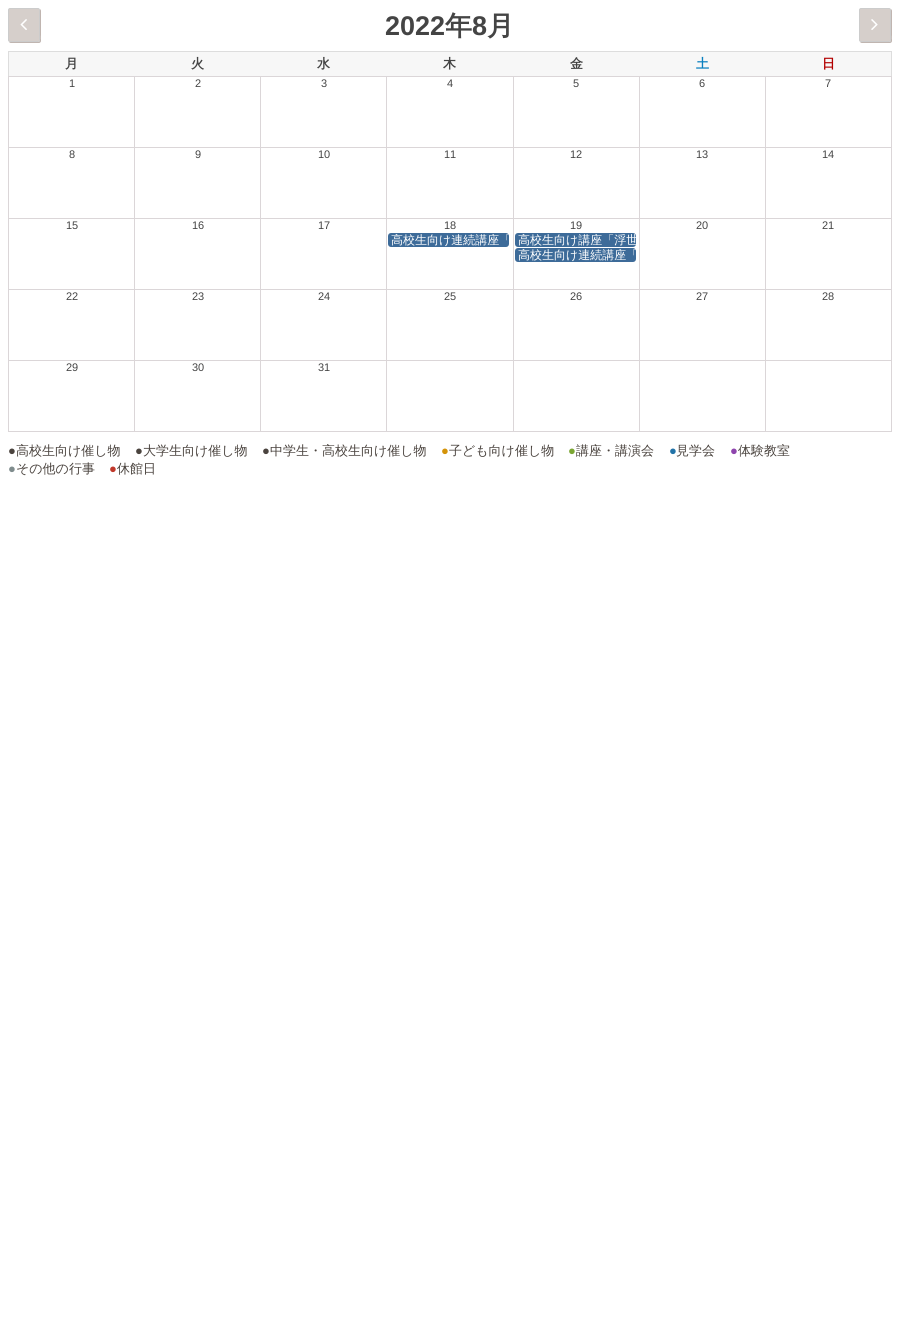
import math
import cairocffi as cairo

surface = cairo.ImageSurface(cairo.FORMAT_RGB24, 900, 1320)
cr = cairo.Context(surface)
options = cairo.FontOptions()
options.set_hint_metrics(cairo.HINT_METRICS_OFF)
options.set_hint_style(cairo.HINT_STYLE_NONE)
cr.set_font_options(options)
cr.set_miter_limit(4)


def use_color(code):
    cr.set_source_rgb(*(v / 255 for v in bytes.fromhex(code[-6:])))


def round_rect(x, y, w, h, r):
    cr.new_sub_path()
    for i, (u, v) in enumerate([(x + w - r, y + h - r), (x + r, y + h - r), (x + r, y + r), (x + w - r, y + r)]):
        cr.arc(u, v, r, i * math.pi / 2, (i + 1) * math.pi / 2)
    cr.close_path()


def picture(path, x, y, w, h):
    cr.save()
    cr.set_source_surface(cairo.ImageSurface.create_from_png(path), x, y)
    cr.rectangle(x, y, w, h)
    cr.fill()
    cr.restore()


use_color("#ffffff")
cr.paint()
use_color("#c0b5b0")
cr.new_path()
cr.move_to(9, 42)
cr.curve_to(9.5, 42.5, 10, 43, 11, 43)
cr.line_to(39, 43)
cr.curve_to(40, 43, 41, 42, 41, 41)
cr.line_to(41, 11)
cr.curve_to(41, 10, 40.5, 9.5, 40, 9)
cr.line_to(40, 35)
cr.curve_to(40, 36, 41, 42, 38, 42)
cr.close_path()
cr.fill()
use_color("#d6cfcb")
round_rect(8.5, 8.5, 31, 33, 1.5)
cr.fill_preserve()
use_color("#cccccc")
cr.set_line_width(1)
cr.stroke()
picture("img1.png", 20, 19, 7, 11)
cr.select_font_face("Liberation Sans", cairo.FONT_SLANT_NORMAL, cairo.FONT_WEIGHT_BOLD)
cr.set_font_size(27)
use_color("#444444")
cr.move_to(385, 35)
cr.show_text("2022")
cr.select_font_face("WenQuanYi Zen Hei", cairo.FONT_SLANT_NORMAL, cairo.FONT_WEIGHT_BOLD)
cr.move_to(445, 35)
cr.show_text("年")
cr.select_font_face("Liberation Sans", cairo.FONT_SLANT_NORMAL, cairo.FONT_WEIGHT_BOLD)
cr.move_to(472, 35)
cr.show_text("8")
cr.select_font_face("WenQuanYi Zen Hei", cairo.FONT_SLANT_NORMAL, cairo.FONT_WEIGHT_BOLD)
cr.move_to(487, 35)
cr.show_text("月")
use_color("#c0b5b0")
cr.new_path()
cr.move_to(860, 42)
cr.curve_to(860.5, 42.5, 861, 43, 862, 43)
cr.line_to(890, 43)
cr.curve_to(891, 43, 892, 42, 892, 41)
cr.line_to(892, 11)
cr.curve_to(892, 10, 891.5, 9.5, 891, 9)
cr.line_to(891, 35)
cr.curve_to(891, 36, 892, 42, 889, 42)
cr.close_path()
cr.fill()
use_color("#d6cfcb")
round_rect(859.5, 8.5, 31, 33, 1.5)
cr.fill_preserve()
use_color("#cccccc")
cr.stroke()
picture("img2.png", 871, 19, 7, 11)
use_color("#dddddd")
cr.rectangle(8, 51, 884, 1)
cr.fill()
cr.rectangle(891, 51, 1, 25)
cr.fill()
cr.rectangle(8, 51, 1, 25)
cr.fill()
use_color("#f7f7f7")
cr.rectangle(9, 52, 882, 24)
cr.fill()
cr.set_font_size(13)
use_color("#444444")
cr.move_to(65, 68)
cr.show_text("月")
cr.move_to(191, 68)
cr.show_text("火")
cr.move_to(317, 68)
cr.show_text("水")
cr.move_to(443, 68)
cr.show_text("木")
cr.move_to(570, 68)
cr.show_text("金")
use_color("#0a80bf")
cr.move_to(696, 68)
cr.show_text("土")
use_color("#b20000")
cr.move_to(822, 68)
cr.show_text("日")
use_color("#dbd6d8")
cr.rectangle(765, 76, 127, 1)
cr.fill()
cr.rectangle(765, 147, 127, 1)
cr.fill()
cr.rectangle(765, 218, 127, 1)
cr.fill()
cr.rectangle(765, 289, 127, 1)
cr.fill()
cr.rectangle(765, 360, 127, 1)
cr.fill()
cr.rectangle(891, 360, 1, 72)
cr.fill()
cr.rectangle(765, 431, 127, 1)
cr.fill()
cr.rectangle(765, 360, 1, 72)
cr.fill()
cr.rectangle(639, 360, 127, 1)
cr.fill()
cr.rectangle(765, 289, 1, 72)
cr.fill()
cr.rectangle(639, 289, 127, 1)
cr.fill()
cr.rectangle(765, 218, 1, 72)
cr.fill()
cr.rectangle(639, 218, 127, 1)
cr.fill()
cr.rectangle(765, 147, 1, 72)
cr.fill()
cr.rectangle(639, 147, 127, 1)
cr.fill()
cr.rectangle(765, 76, 1, 72)
cr.fill()
cr.rectangle(639, 76, 127, 1)
cr.fill()
cr.rectangle(639, 431, 127, 1)
cr.fill()
cr.rectangle(639, 360, 1, 72)
cr.fill()
cr.rectangle(513, 360, 127, 1)
cr.fill()
cr.rectangle(639, 289, 1, 72)
cr.fill()
cr.rectangle(513, 289, 127, 1)
cr.fill()
cr.rectangle(639, 218, 1, 72)
cr.fill()
cr.rectangle(513, 218, 127, 1)
cr.fill()
cr.rectangle(639, 147, 1, 72)
cr.fill()
cr.rectangle(513, 147, 127, 1)
cr.fill()
cr.rectangle(639, 76, 1, 72)
cr.fill()
cr.rectangle(513, 76, 127, 1)
cr.fill()
cr.rectangle(513, 431, 127, 1)
cr.fill()
cr.rectangle(513, 360, 1, 72)
cr.fill()
cr.rectangle(386, 360, 128, 1)
cr.fill()
cr.rectangle(513, 289, 1, 72)
cr.fill()
cr.rectangle(386, 289, 128, 1)
cr.fill()
cr.rectangle(513, 218, 1, 72)
cr.fill()
cr.rectangle(386, 218, 128, 1)
cr.fill()
cr.rectangle(513, 147, 1, 72)
cr.fill()
cr.rectangle(386, 147, 128, 1)
cr.fill()
cr.rectangle(513, 76, 1, 72)
cr.fill()
cr.rectangle(386, 76, 128, 1)
cr.fill()
cr.rectangle(386, 431, 128, 1)
cr.fill()
cr.rectangle(386, 360, 1, 72)
cr.fill()
cr.rectangle(260, 360, 127, 1)
cr.fill()
cr.rectangle(386, 289, 1, 72)
cr.fill()
cr.rectangle(260, 289, 127, 1)
cr.fill()
cr.rectangle(386, 218, 1, 72)
cr.fill()
cr.rectangle(260, 218, 127, 1)
cr.fill()
cr.rectangle(386, 147, 1, 72)
cr.fill()
cr.rectangle(260, 147, 127, 1)
cr.fill()
cr.rectangle(386, 76, 1, 72)
cr.fill()
cr.rectangle(260, 76, 127, 1)
cr.fill()
cr.rectangle(260, 431, 127, 1)
cr.fill()
cr.rectangle(260, 360, 1, 72)
cr.fill()
cr.rectangle(134, 360, 127, 1)
cr.fill()
cr.rectangle(260, 289, 1, 72)
cr.fill()
cr.rectangle(134, 289, 127, 1)
cr.fill()
cr.rectangle(260, 218, 1, 72)
cr.fill()
cr.rectangle(134, 218, 127, 1)
cr.fill()
cr.rectangle(260, 147, 1, 72)
cr.fill()
cr.rectangle(134, 147, 127, 1)
cr.fill()
cr.rectangle(260, 76, 1, 72)
cr.fill()
cr.rectangle(134, 76, 127, 1)
cr.fill()
cr.rectangle(134, 431, 127, 1)
cr.fill()
cr.rectangle(134, 360, 1, 72)
cr.fill()
cr.rectangle(8, 360, 127, 1)
cr.fill()
cr.rectangle(134, 289, 1, 72)
cr.fill()
cr.rectangle(8, 289, 127, 1)
cr.fill()
cr.rectangle(134, 218, 1, 72)
cr.fill()
cr.rectangle(8, 218, 127, 1)
cr.fill()
cr.rectangle(134, 147, 1, 72)
cr.fill()
cr.rectangle(8, 147, 127, 1)
cr.fill()
cr.rectangle(134, 76, 1, 72)
cr.fill()
cr.rectangle(8, 76, 127, 1)
cr.fill()
cr.rectangle(8, 431, 127, 1)
cr.fill()
cr.rectangle(8, 360, 1, 72)
cr.fill()
cr.rectangle(8, 289, 1, 72)
cr.fill()
cr.rectangle(8, 218, 1, 72)
cr.fill()
cr.rectangle(8, 147, 1, 72)
cr.fill()
cr.rectangle(8, 76, 1, 72)
cr.fill()
cr.select_font_face("Liberation Sans")
cr.set_font_size(11)
use_color("#444444")
cr.move_to(69, 87)
cr.show_text("1")
cr.move_to(195, 87)
cr.show_text("2")
cr.move_to(321, 87)
cr.show_text("3")
cr.move_to(447, 87)
cr.show_text("4")
cr.move_to(573, 87)
cr.show_text("5")
cr.move_to(699, 87)
cr.show_text("6")
use_color("#dbd6d8")
cr.rectangle(891, 289, 1, 72)
cr.fill()
cr.rectangle(891, 218, 1, 72)
cr.fill()
cr.rectangle(891, 147, 1, 72)
cr.fill()
cr.rectangle(891, 76, 1, 72)
cr.fill()
use_color("#444444")
cr.move_to(825, 87)
cr.show_text("7")
cr.move_to(69, 158)
cr.show_text("8")
cr.move_to(195, 158)
cr.show_text("9")
cr.move_to(318, 158)
cr.show_text("10")
cr.move_to(444, 158)
cr.show_text("11")
cr.move_to(570, 158)
cr.show_text("12")
cr.move_to(696, 158)
cr.show_text("13")
cr.move_to(822, 158)
cr.show_text("14")
cr.move_to(66, 229)
cr.show_text("15")
cr.move_to(192, 229)
cr.show_text("16")
cr.move_to(318, 229)
cr.show_text("17")
cr.move_to(444, 229)
cr.show_text("18")
use_color("#3d6b99")
round_rect(388, 233, 121, 14, 3)
cr.fill()
cr.save()
round_rect(388, 233, 121, 14, 3)
cr.clip()
cr.select_font_face("WenQuanYi Zen Hei Medium")
cr.set_font_size(12)
use_color("#ffffff")
cr.move_to(391, 244)
cr.show_text("高校生向け連続講座「")
cr.restore()
use_color("#444444")
cr.move_to(570, 229)
cr.show_text("19")
use_color("#3d6b99")
round_rect(515, 233, 121, 14, 3)
cr.fill()
cr.save()
round_rect(515, 233, 121, 14, 3)
cr.clip()
cr.select_font_face("WenQuanYi Zen Hei Medium")
cr.set_font_size(12)
use_color("#ffffff")
cr.move_to(518, 244)
cr.show_text("高校生向け講座「浮世")
cr.restore()
round_rect(515, 248, 121, 14, 3)
cr.fill()
cr.select_font_face("WenQuanYi Zen Hei Medium")
cr.set_font_size(12)
use_color("#ffffff")
cr.move_to(518, 259)
cr.show_text("高校生向け連続講座「")
cr.select_font_face("Liberation Sans")
cr.set_font_size(11)
use_color("#444444")
cr.move_to(696, 229)
cr.show_text("20")
cr.move_to(822, 229)
cr.show_text("21")
cr.move_to(66, 300)
cr.show_text("22")
cr.move_to(192, 300)
cr.show_text("23")
cr.move_to(318, 300)
cr.show_text("24")
cr.move_to(444, 300)
cr.show_text("25")
cr.move_to(570, 300)
cr.show_text("26")
cr.move_to(696, 300)
cr.show_text("27")
cr.move_to(822, 300)
cr.show_text("28")
cr.move_to(66, 371)
cr.show_text("29")
cr.move_to(192, 371)
cr.show_text("30")
cr.move_to(318, 371)
cr.show_text("31")
cr.set_font_size(13)
use_color("#4a433e")
cr.move_to(8, 455)
cr.show_text("●")
cr.select_font_face("WenQuanYi Zen Hei Medium")
cr.move_to(16, 455)
cr.show_text("高校生向け催し物")
cr.select_font_face("Liberation Sans")
cr.move_to(135, 455)
cr.show_text("●")
cr.select_font_face("WenQuanYi Zen Hei Medium")
cr.move_to(143, 455)
cr.show_text("大学生向け催し物")
cr.select_font_face("Liberation Sans")
cr.move_to(262, 455)
cr.show_text("●")
cr.select_font_face("WenQuanYi Zen Hei Medium")
cr.move_to(270, 455)
cr.show_text("中学生・高校生向け催し物")
cr.select_font_face("Liberation Sans")
use_color("#d49308")
cr.move_to(441, 455)
cr.show_text("●")
cr.select_font_face("WenQuanYi Zen Hei Medium")
use_color("#4a433e")
cr.move_to(449, 455)
cr.show_text("子ども向け催し物")
cr.select_font_face("Liberation Sans")
use_color("#7ba633")
cr.move_to(568, 455)
cr.show_text("●")
cr.select_font_face("WenQuanYi Zen Hei Medium")
use_color("#4a433e")
cr.move_to(576, 455)
cr.show_text("講座・講演会")
cr.select_font_face("Liberation Sans")
use_color("#2273a8")
cr.move_to(669, 455)
cr.show_text("●")
cr.select_font_face("WenQuanYi Zen Hei Medium")
use_color("#4a433e")
cr.move_to(676, 455)
cr.show_text("見学会")
cr.select_font_face("Liberation Sans")
use_color("#8e44ad")
cr.move_to(730, 455)
cr.show_text("●")
cr.select_font_face("WenQuanYi Zen Hei Medium")
use_color("#4a433e")
cr.move_to(738, 455)
cr.show_text("体験教室")
cr.select_font_face("Liberation Sans")
use_color("#7f8c8d")
cr.move_to(8, 473)
cr.show_text("●")
cr.select_font_face("WenQuanYi Zen Hei Medium")
use_color("#4a433e")
cr.move_to(16, 473)
cr.show_text("その他の行事")
cr.select_font_face("Liberation Sans")
use_color("#c0392b")
cr.move_to(109, 473)
cr.show_text("●")
cr.select_font_face("WenQuanYi Zen Hei Medium")
use_color("#4a433e")
cr.move_to(117, 473)
cr.show_text("休館日")
surface.write_to_png("result.png")
